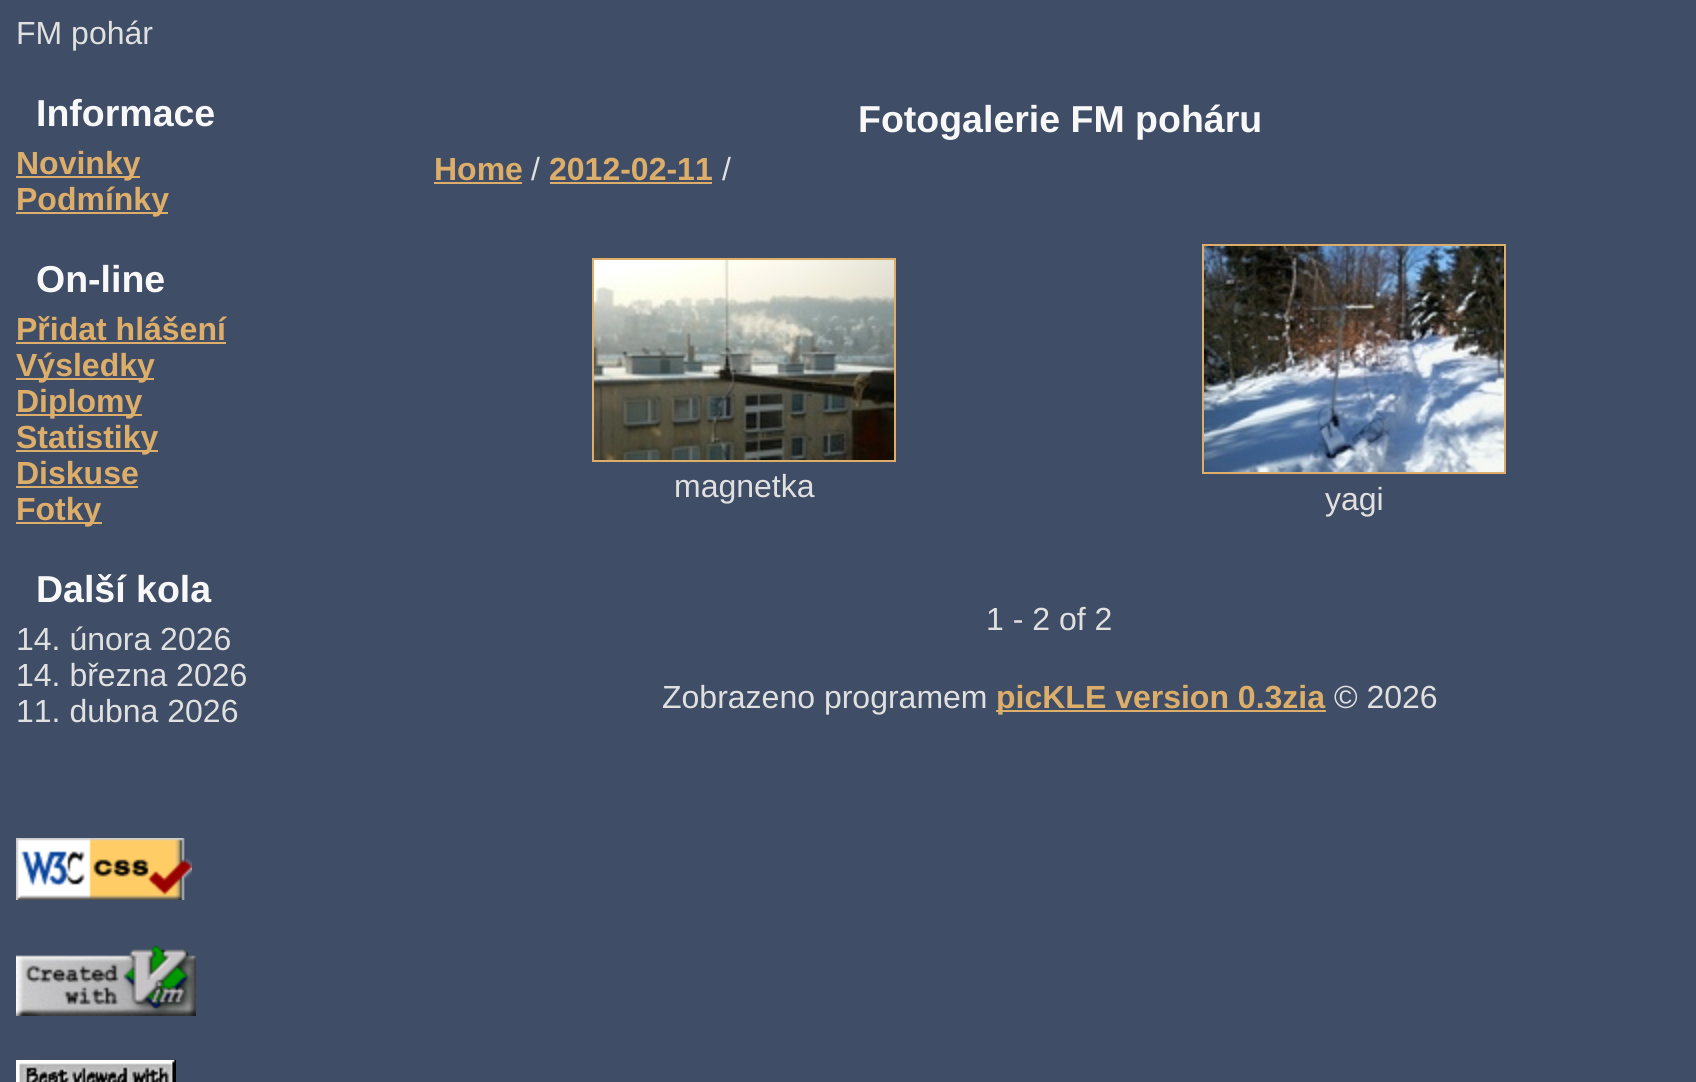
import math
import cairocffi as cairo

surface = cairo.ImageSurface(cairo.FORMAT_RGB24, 1696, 1082)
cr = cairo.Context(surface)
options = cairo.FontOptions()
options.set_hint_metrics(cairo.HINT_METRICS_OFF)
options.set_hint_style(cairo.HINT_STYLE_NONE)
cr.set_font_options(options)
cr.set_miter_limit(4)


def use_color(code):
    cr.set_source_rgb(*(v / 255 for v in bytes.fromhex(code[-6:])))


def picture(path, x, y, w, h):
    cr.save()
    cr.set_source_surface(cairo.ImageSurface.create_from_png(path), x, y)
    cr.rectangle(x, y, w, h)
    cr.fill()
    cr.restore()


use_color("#3f4e66")
cr.paint()
cr.select_font_face("Liberation Sans")
cr.set_font_size(32)
use_color("#e0e0e0")
cr.move_to(16, 44)
cr.show_text("FM pohár")
cr.select_font_face("Liberation Sans", cairo.FONT_SLANT_NORMAL, cairo.FONT_WEIGHT_BOLD)
cr.set_font_size(37.5)
use_color("#f8f8f8")
cr.move_to(36, 126)
cr.show_text("Informace")
use_color("#ddad6a")
cr.rectangle(16, 176, 124, 2)
cr.fill()
cr.set_font_size(32)
cr.move_to(16, 174)
cr.show_text("Novinky")
cr.rectangle(16, 212, 152, 2)
cr.fill()
cr.move_to(16, 210)
cr.show_text("Podmínky")
cr.set_font_size(37.5)
use_color("#f8f8f8")
cr.move_to(36, 292)
cr.show_text("On-line")
cr.set_font_size(32)
use_color("#ddad6a")
cr.move_to(16, 340)
cr.show_text("Přidat hlášení")
cr.rectangle(16, 342, 210, 2)
cr.fill()
cr.rectangle(16, 378, 138, 2)
cr.fill()
cr.move_to(16, 376)
cr.show_text("Výsledky")
cr.rectangle(16, 414, 126, 2)
cr.fill()
cr.move_to(16, 412)
cr.show_text("Diplomy")
cr.rectangle(16, 450, 142, 2)
cr.fill()
cr.move_to(16, 448)
cr.show_text("Statistiky")
cr.move_to(16, 484)
cr.show_text("Diskuse")
cr.rectangle(16, 486, 122, 2)
cr.fill()
cr.rectangle(16, 522, 86, 2)
cr.fill()
cr.move_to(16, 520)
cr.show_text("Fotky")
cr.set_font_size(37.5)
use_color("#f8f8f8")
cr.move_to(36, 602)
cr.show_text("Další kola")
cr.select_font_face("Liberation Sans")
cr.set_font_size(32)
use_color("#e0e0e0")
cr.move_to(16, 650)
cr.show_text("14. února 2026")
cr.move_to(16, 686)
cr.show_text("14. března 2026")
cr.move_to(16, 722)
cr.show_text("11. dubna 2026")
picture("img1.png", 16, 838, 176, 62)
picture("img2.png", 16, 945, 180, 71)
picture("img3.png", 16, 1060, 160, 22)
cr.select_font_face("Liberation Sans", cairo.FONT_SLANT_NORMAL, cairo.FONT_WEIGHT_BOLD)
cr.set_font_size(37.5)
use_color("#f8f8f8")
cr.move_to(858, 132)
cr.show_text("Fotogalerie FM poháru")
cr.set_font_size(32)
use_color("#ddad6a")
cr.move_to(434, 180)
cr.show_text("Home")
cr.rectangle(434, 182, 88, 2)
cr.fill()
cr.select_font_face("Liberation Sans")
use_color("#e0e0e0")
cr.move_to(531, 180)
cr.show_text("/")
cr.select_font_face("Liberation Sans", cairo.FONT_SLANT_NORMAL, cairo.FONT_WEIGHT_BOLD)
use_color("#ddad6a")
cr.move_to(549, 180)
cr.show_text("2012-02-11")
cr.rectangle(550, 182, 162, 2)
cr.fill()
cr.select_font_face("Liberation Sans")
use_color("#e0e0e0")
cr.move_to(722, 180)
cr.show_text("/")
cr.rectangle(593, 259, 302, 202)
use_color("#ddad6a")
cr.stroke()
picture("img4.png", 594, 260, 300, 200)
use_color("#e0e0e0")
cr.move_to(674, 497)
cr.show_text("magnetka")
cr.rectangle(1203, 245, 302, 228)
use_color("#ddad6a")
cr.stroke()
picture("img5.png", 1204, 246, 300, 226)
use_color("#e0e0e0")
cr.move_to(1325, 510)
cr.show_text("yagi")
cr.move_to(986, 630)
cr.show_text("1 - 2 of 2")
cr.move_to(662, 708)
cr.show_text("Zobrazeno programem")
use_color("#ddad6a")
cr.rectangle(996, 710, 330, 2)
cr.fill()
cr.select_font_face("Liberation Sans", cairo.FONT_SLANT_NORMAL, cairo.FONT_WEIGHT_BOLD)
cr.move_to(996, 708)
cr.show_text("picKLE version 0.3zia")
cr.select_font_face("Liberation Sans")
use_color("#e0e0e0")
cr.move_to(1334, 708)
cr.show_text("© 2026")
surface.write_to_png("result.png")
